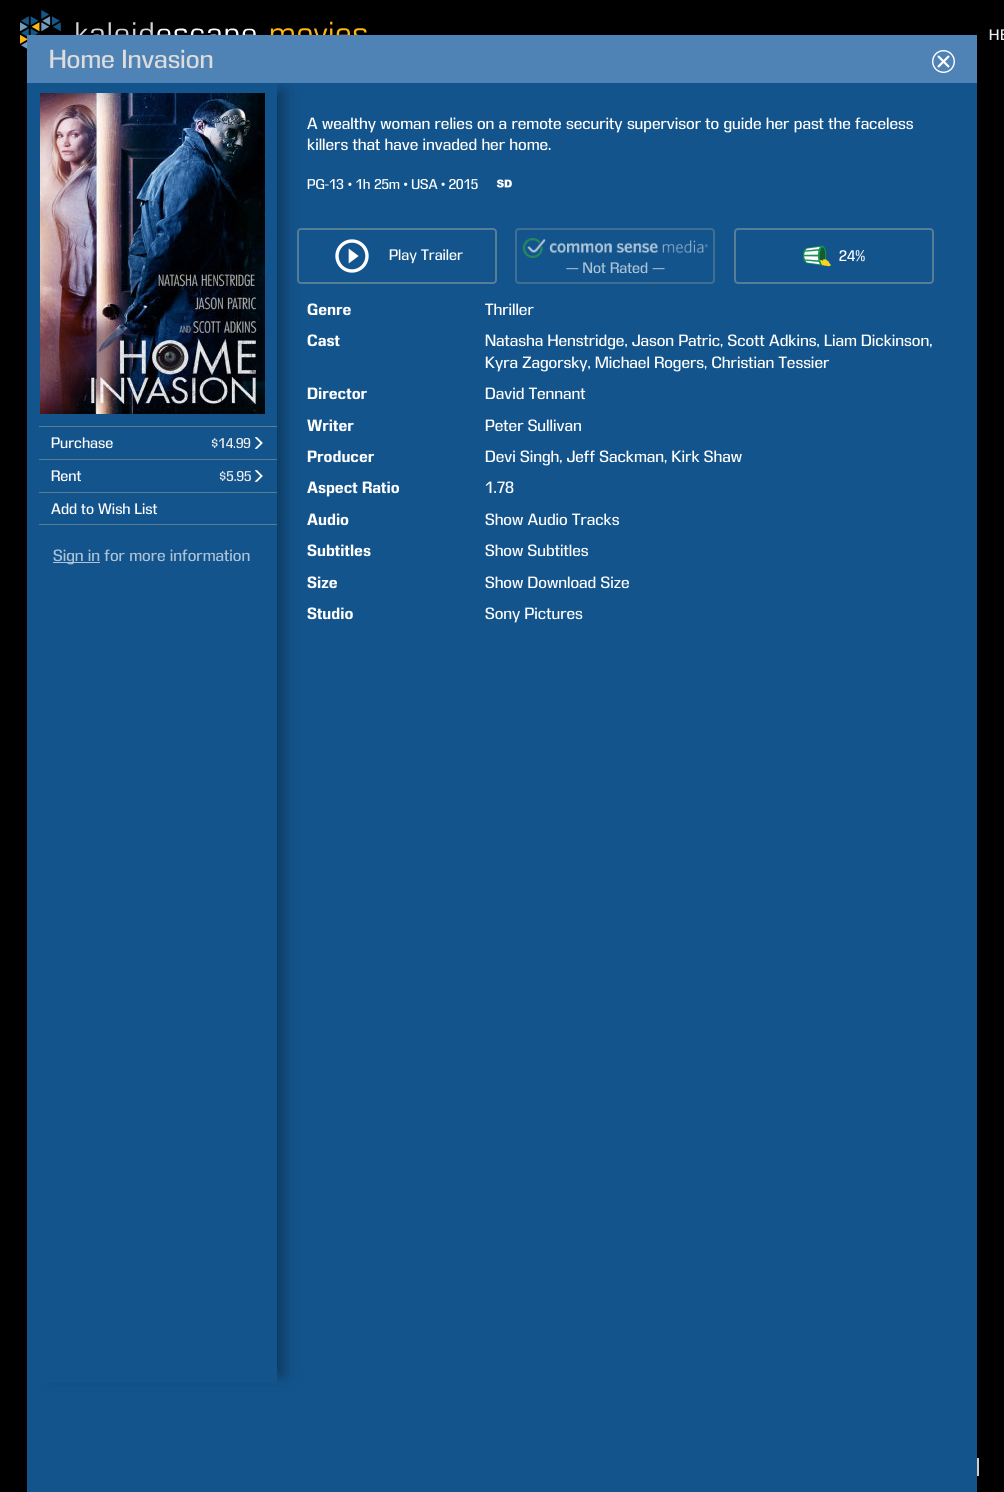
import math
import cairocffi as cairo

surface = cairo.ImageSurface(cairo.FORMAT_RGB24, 1004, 1492)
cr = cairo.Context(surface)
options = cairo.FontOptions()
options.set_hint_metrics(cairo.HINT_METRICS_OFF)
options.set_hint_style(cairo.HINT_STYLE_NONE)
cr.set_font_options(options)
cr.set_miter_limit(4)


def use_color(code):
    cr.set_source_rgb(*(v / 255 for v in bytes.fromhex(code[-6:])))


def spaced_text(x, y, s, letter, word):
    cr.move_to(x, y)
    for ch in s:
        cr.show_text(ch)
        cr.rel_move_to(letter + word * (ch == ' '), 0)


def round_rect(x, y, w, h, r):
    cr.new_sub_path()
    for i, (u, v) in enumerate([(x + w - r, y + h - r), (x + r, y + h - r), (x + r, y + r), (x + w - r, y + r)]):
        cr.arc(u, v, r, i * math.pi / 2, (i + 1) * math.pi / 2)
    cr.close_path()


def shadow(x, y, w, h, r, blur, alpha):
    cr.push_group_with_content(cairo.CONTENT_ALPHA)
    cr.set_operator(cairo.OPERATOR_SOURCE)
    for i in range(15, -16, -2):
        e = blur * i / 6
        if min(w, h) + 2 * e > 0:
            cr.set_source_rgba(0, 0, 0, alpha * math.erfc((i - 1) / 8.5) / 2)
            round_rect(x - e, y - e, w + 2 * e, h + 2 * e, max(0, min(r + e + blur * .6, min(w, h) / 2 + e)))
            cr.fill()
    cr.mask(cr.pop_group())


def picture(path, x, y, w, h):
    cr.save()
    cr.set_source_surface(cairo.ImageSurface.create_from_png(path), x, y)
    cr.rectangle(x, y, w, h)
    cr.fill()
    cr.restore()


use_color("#000000")
cr.paint()
picture("img1.png", 20, 10, 347, 39)
cr.select_font_face("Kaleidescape")
cr.set_font_size(14)
use_color("#eeeeee")
spaced_text(989, 40, "HE", 1, 0)
picture("img2.png", 977, 1458, 2, 18)
use_color("#13548c")
cr.rectangle(27, 83, 950, 1409)
cr.fill()
round_rect(298, 229, 198, 54, 3)
use_color("#567e95")
cr.stroke()
cr.save()
cr.set_fill_rule(cairo.FILL_RULE_EVEN_ODD)
cr.new_path()
cr.move_to(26, 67)
cr.line_to(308, 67)
cr.line_to(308, 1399)
cr.line_to(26, 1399)
cr.close_path()
cr.move_to(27, 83)
cr.line_to(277, 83)
cr.line_to(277, 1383)
cr.line_to(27, 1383)
cr.close_path()
cr.clip()
use_color("#0d395f")
shadow(50, 91, 234, 1284, 0, 7.5, 1)
cr.restore()
use_color("#4f83b6")
cr.rectangle(27, 35, 950, 48)
cr.fill()
cr.set_font_size(24)
use_color("#dcdcdc")
cr.move_to(49, 68)
cr.show_text("Home Invasion")
picture("img3.png", 932, 50, 23, 23)
picture("img4.png", 40, 93, 225, 321)
use_color("#567e95")
cr.rectangle(39, 426, 238, 1)
cr.fill()
cr.set_font_size(14)
use_color("#ffffff")
cr.move_to(51, 448)
cr.show_text("Purchase")
cr.set_font_size(13)
use_color("#eeeeee")
cr.move_to(211, 448)
cr.show_text("$14.99")
picture("img5.png", 254, 437, 9, 12)
use_color("#567e95")
cr.rectangle(39, 459, 238, 1)
cr.fill()
cr.set_font_size(14)
use_color("#ffffff")
cr.move_to(51, 481)
cr.show_text("Rent")
cr.set_font_size(13)
use_color("#eeeeee")
cr.move_to(219, 481)
cr.show_text("$5.95")
picture("img5.png", 254, 470, 9, 12)
use_color("#567e95")
cr.rectangle(39, 492, 238, 1)
cr.fill()
cr.rectangle(39, 524, 238, 1)
cr.fill()
cr.set_font_size(14)
use_color("#ffffff")
cr.move_to(51, 514)
cr.show_text("Add to Wish List")
use_color("#b0c3d7")
cr.rectangle(53, 562, 47, 1)
cr.fill()
cr.set_font_size(15)
use_color("#acc3d7")
cr.move_to(53, 561)
cr.show_text("Sign in for more information")
use_color("#ffffff")
cr.move_to(307, 129)
cr.show_text("A wealthy woman relies on a remote security supervisor to guide her past the faceless")
cr.move_to(307, 150)
cr.show_text("killers that have invaded her home.")
cr.set_font_size(13)
cr.move_to(307, 189)
cr.show_text("PG-13")
cr.move_to(348, 189)
cr.show_text("• 1h 25m • USA • 2015")
picture("img6.png", 496, 179, 16, 9)
picture("img7.png", 335, 239, 34, 34)
cr.set_font_size(14)
cr.move_to(389, 260)
cr.show_text("Play Trailer")
round_rect(735, 229, 198, 54, 3)
use_color("#567e95")
cr.stroke()
picture("img8.png", 803, 245, 28, 22)
use_color("#ffffff")
cr.move_to(839, 261)
cr.show_text("24%")
round_rect(516, 229, 198, 54, 3)
use_color("#3f6f92")
cr.stroke()
picture("img9.png", 522, 238, 186, 20)
use_color("#acc3d7")
cr.move_to(566, 273)
cr.show_text("— Not Rated —")
cr.select_font_face("Kaleidescape", cairo.FONT_SLANT_NORMAL, cairo.FONT_WEIGHT_BOLD)
cr.set_font_size(15)
use_color("#ffffff")
cr.move_to(307, 315)
cr.show_text("Genre")
cr.select_font_face("Kaleidescape")
cr.move_to(485, 315)
cr.show_text("Thriller")
cr.select_font_face("Kaleidescape", cairo.FONT_SLANT_NORMAL, cairo.FONT_WEIGHT_BOLD)
cr.move_to(307, 346)
cr.show_text("Cast")
cr.select_font_face("Kaleidescape")
cr.move_to(485, 346)
cr.show_text("Natasha Henstridge, Jason Patric, Scott Adkins, Liam Dickinson,")
cr.move_to(485, 368)
cr.show_text("Kyra Zagorsky, Michael Rogers, Christian Tessier")
cr.select_font_face("Kaleidescape", cairo.FONT_SLANT_NORMAL, cairo.FONT_WEIGHT_BOLD)
cr.move_to(307, 399)
cr.show_text("Director")
cr.select_font_face("Kaleidescape")
cr.move_to(485, 399)
cr.show_text("David Tennant")
cr.select_font_face("Kaleidescape", cairo.FONT_SLANT_NORMAL, cairo.FONT_WEIGHT_BOLD)
cr.move_to(307, 431)
cr.show_text("Writer")
cr.select_font_face("Kaleidescape")
cr.move_to(485, 431)
cr.show_text("Peter Sullivan")
cr.select_font_face("Kaleidescape", cairo.FONT_SLANT_NORMAL, cairo.FONT_WEIGHT_BOLD)
cr.move_to(307, 462)
cr.show_text("Producer")
cr.select_font_face("Kaleidescape")
cr.move_to(485, 462)
cr.show_text("Devi Singh, Jeff Sackman, Kirk Shaw")
cr.select_font_face("Kaleidescape", cairo.FONT_SLANT_NORMAL, cairo.FONT_WEIGHT_BOLD)
cr.move_to(307, 493)
cr.show_text("Aspect Ratio")
cr.select_font_face("Kaleidescape")
cr.move_to(485, 493)
cr.show_text("1.78")
cr.select_font_face("Kaleidescape", cairo.FONT_SLANT_NORMAL, cairo.FONT_WEIGHT_BOLD)
cr.move_to(307, 525)
cr.show_text("Audio")
cr.select_font_face("Kaleidescape")
cr.move_to(485, 525)
cr.show_text("Show Audio Tracks")
cr.select_font_face("Kaleidescape", cairo.FONT_SLANT_NORMAL, cairo.FONT_WEIGHT_BOLD)
cr.move_to(307, 556)
cr.show_text("Subtitles")
cr.select_font_face("Kaleidescape")
cr.move_to(485, 556)
cr.show_text("Show Subtitles")
cr.select_font_face("Kaleidescape", cairo.FONT_SLANT_NORMAL, cairo.FONT_WEIGHT_BOLD)
cr.move_to(307, 588)
cr.show_text("Size")
cr.select_font_face("Kaleidescape")
cr.move_to(485, 588)
cr.show_text("Show Download Size")
cr.select_font_face("Kaleidescape", cairo.FONT_SLANT_NORMAL, cairo.FONT_WEIGHT_BOLD)
cr.move_to(307, 619)
cr.show_text("Studio")
cr.select_font_face("Kaleidescape")
cr.move_to(485, 619)
cr.show_text("Sony Pictures")
surface.write_to_png("result.png")
